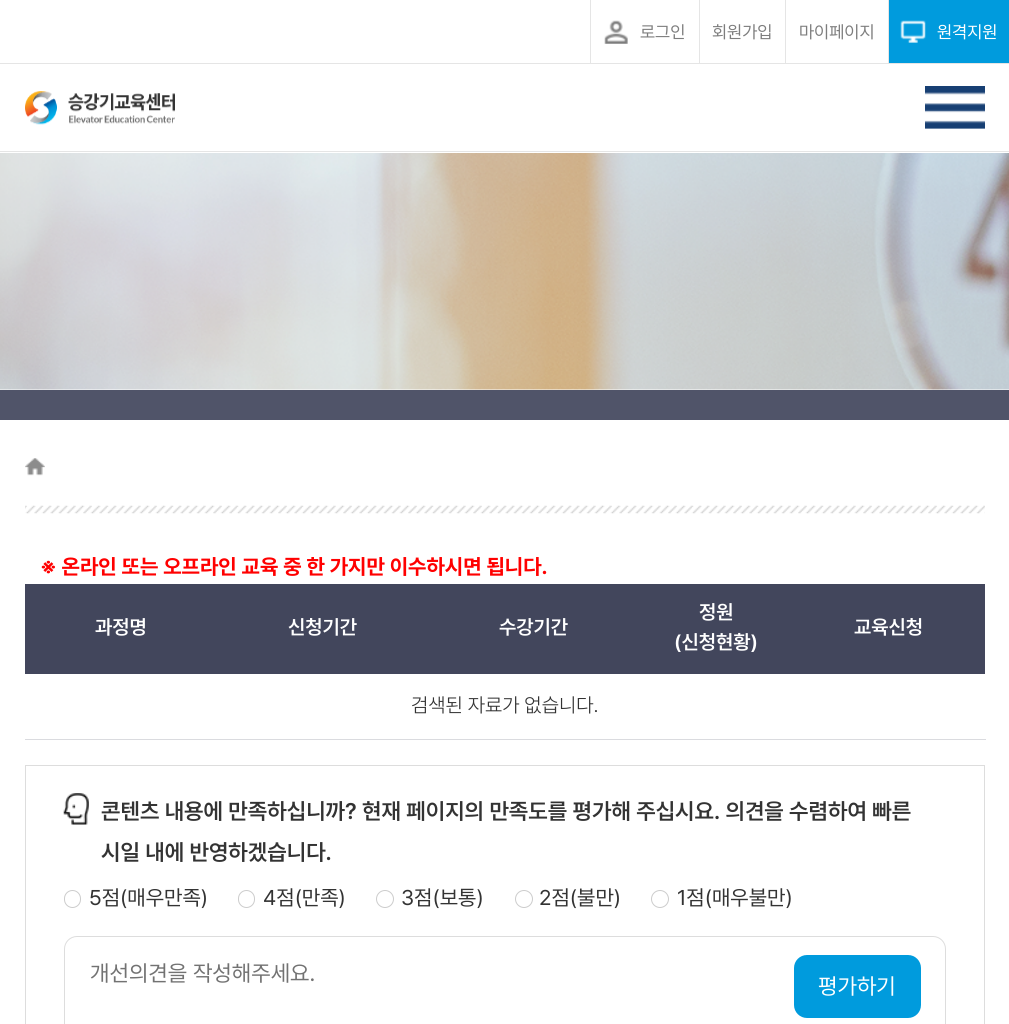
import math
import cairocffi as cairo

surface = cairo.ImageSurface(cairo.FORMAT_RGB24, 1009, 1024)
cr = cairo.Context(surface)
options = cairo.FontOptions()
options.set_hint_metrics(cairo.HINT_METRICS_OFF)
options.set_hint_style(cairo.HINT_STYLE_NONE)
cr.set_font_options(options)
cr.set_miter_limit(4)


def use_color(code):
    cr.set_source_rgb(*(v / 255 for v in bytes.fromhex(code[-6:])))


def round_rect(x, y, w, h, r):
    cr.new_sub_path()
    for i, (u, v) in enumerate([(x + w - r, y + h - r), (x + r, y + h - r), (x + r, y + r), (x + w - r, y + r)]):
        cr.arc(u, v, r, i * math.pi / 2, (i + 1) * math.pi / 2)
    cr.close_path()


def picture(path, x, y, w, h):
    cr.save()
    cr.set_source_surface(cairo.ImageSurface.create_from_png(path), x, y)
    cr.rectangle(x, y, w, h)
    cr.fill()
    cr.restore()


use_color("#ffffff")
cr.paint()
use_color("#e5e5e5")
cr.rectangle(0, 151, 1009, 1)
cr.fill()
cr.rectangle(0, 63, 1009, 1)
cr.fill()
cr.rectangle(590, 0, 1, 63)
cr.fill()
picture("img1.png", 604, 20, 24, 24)
cr.select_font_face("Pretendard")
cr.set_font_size(17.5)
use_color("#7d7d7d")
cr.move_to(640, 38)
cr.show_text("로그인")
use_color("#e5e5e5")
cr.rectangle(699, 0, 1, 63)
cr.fill()
use_color("#7d7d7d")
cr.move_to(712, 38)
cr.show_text("회원가입")
use_color("#e5e5e5")
cr.rectangle(785, 0, 1, 63)
cr.fill()
use_color("#7d7d7d")
cr.move_to(799, 38)
cr.show_text("마이페이지")
use_color("#009bdd")
cr.rectangle(889, 0, 120, 63)
cr.fill()
use_color("#e5e5e5")
cr.rectangle(888, 0, 1, 63)
cr.fill()
picture("img2.png", 900, 20, 26, 23)
use_color("#ffffff")
cr.move_to(937, 38)
cr.show_text("원격지원")
picture("img3.png", 25, 91, 150, 34)
picture("img4.png", 925, 86, 60, 43)
picture("img5.png", 0, 153, 1009, 237)
use_color("#505469")
cr.rectangle(0, 390, 1009, 30)
cr.fill()
picture("img6.png", 25, 505, 960, 9)
picture("img7.png", 25, 458, 20, 18)
cr.select_font_face("Pretendard", cairo.FONT_SLANT_NORMAL, cairo.FONT_WEIGHT_BOLD)
cr.set_font_size(21.25)
use_color("#ff0000")
cr.move_to(40, 574)
cr.show_text("※ 온라인 또는 오프라인 교육 중 한 가지만 이수하시면 됩니다.")
use_color("#42465c")
cr.rectangle(25, 584, 960, 90)
cr.fill()
cr.select_font_face("Pretendard SemiBold")
cr.set_font_size(20)
use_color("#ffffff")
cr.move_to(95, 634)
cr.show_text("과정명")
cr.move_to(288, 634)
cr.show_text("신청기간")
cr.move_to(499, 634)
cr.show_text("수강기간")
cr.move_to(699, 619)
cr.show_text("정원")
cr.move_to(674, 649)
cr.show_text("(신청현황)")
cr.move_to(854, 634)
cr.show_text("교육신청")
use_color("#dadbdf")
cr.rectangle(25, 739, 961, 1)
cr.fill()
cr.select_font_face("Pretendard Light")
use_color("#333333")
cr.move_to(411, 712)
cr.show_text("검색된 자료가 없습니다.")
cr.rectangle(25.5, 765.5, 959, 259)
use_color("#dddddd")
cr.set_line_width(1)
cr.stroke()
picture("img8.png", 63, 793, 26, 32)
cr.select_font_face("Pretendard SemiBold")
cr.set_font_size(22.5)
use_color("#333333")
cr.move_to(101, 819)
cr.show_text("콘텐츠 내용에 만족하십니까? 현재 페이지의 만족도를 평가해 주십시요. 의견을 수렴하여 빠른")
cr.move_to(101, 860)
cr.show_text("시일 내에 반영하겠습니다.")
round_rect(64.5, 890.5, 16, 17, 8)
use_color("#cccccc")
cr.stroke()
cr.select_font_face("Pretendard")
cr.set_font_size(21.25)
use_color("#333333")
cr.move_to(89, 905)
cr.show_text("5점(매우만족)")
round_rect(238.5, 890.5, 16, 17, 8)
use_color("#cccccc")
cr.stroke()
use_color("#333333")
cr.move_to(263, 905)
cr.show_text("4점(만족)")
cr.new_path()
cr.arc(385, 899, 8.5, 0, 2 * math.pi)
use_color("#cccccc")
cr.stroke()
use_color("#333333")
cr.move_to(401, 905)
cr.show_text("3점(보통)")
cr.new_path()
cr.arc(524, 899, 8.5, 0, 2 * math.pi)
use_color("#cccccc")
cr.stroke()
use_color("#333333")
cr.move_to(539, 905)
cr.show_text("2점(불만)")
cr.new_path()
cr.arc(660, 899, 8.5, 0, 2 * math.pi)
use_color("#cccccc")
cr.stroke()
use_color("#333333")
cr.move_to(677, 905)
cr.show_text("1점(매우불만)")
round_rect(64.5, 936.5, 881, 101, 12.5)
use_color("#dddddd")
cr.stroke()
cr.set_font_size(22.5)
use_color("#727272")
cr.move_to(90, 981)
cr.show_text("개선의견을 작성해주세요.")
use_color("#009bdd")
round_rect(794, 955, 127, 63, 13)
cr.fill()
use_color("#ffffff")
cr.move_to(818, 994)
cr.show_text("평가하기")
surface.write_to_png("result.png")
